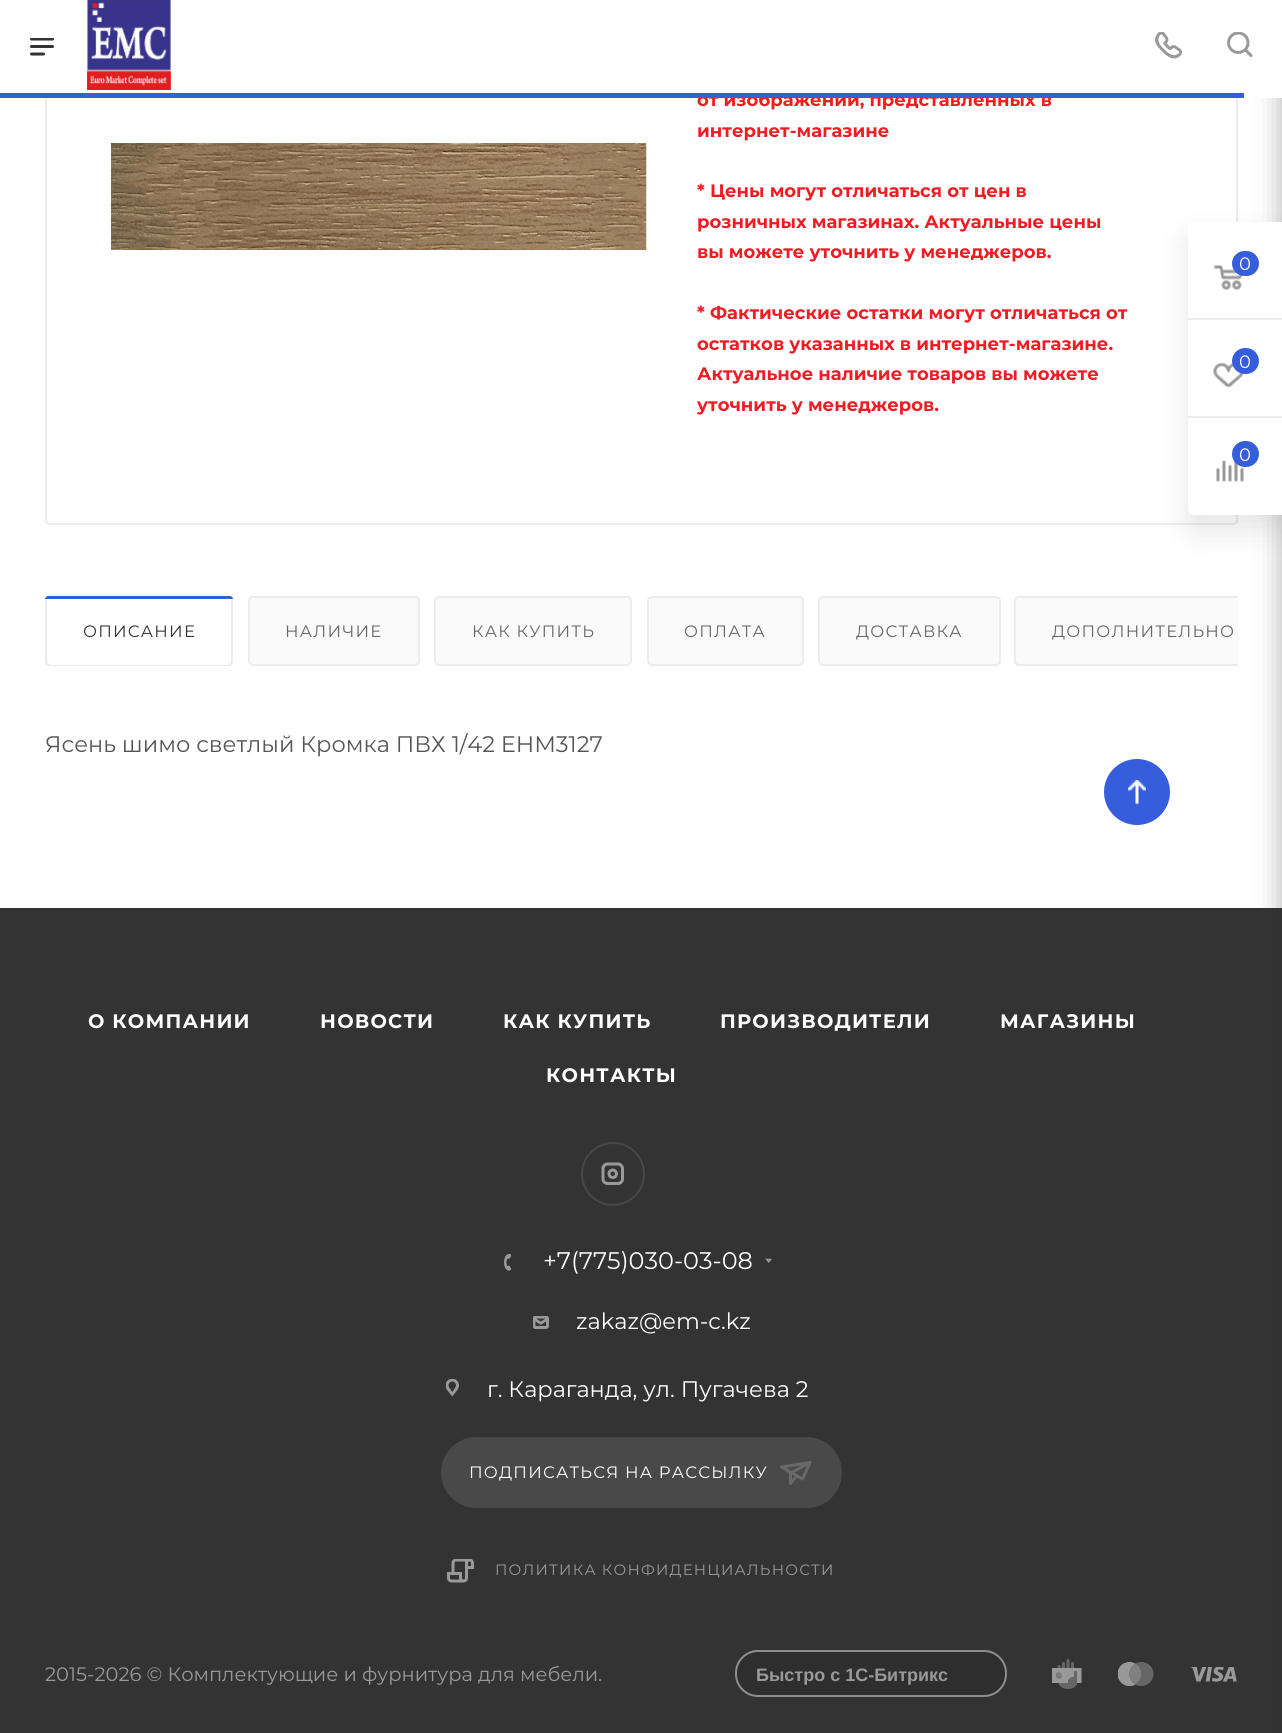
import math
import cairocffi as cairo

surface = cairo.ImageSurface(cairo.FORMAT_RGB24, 1282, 1733)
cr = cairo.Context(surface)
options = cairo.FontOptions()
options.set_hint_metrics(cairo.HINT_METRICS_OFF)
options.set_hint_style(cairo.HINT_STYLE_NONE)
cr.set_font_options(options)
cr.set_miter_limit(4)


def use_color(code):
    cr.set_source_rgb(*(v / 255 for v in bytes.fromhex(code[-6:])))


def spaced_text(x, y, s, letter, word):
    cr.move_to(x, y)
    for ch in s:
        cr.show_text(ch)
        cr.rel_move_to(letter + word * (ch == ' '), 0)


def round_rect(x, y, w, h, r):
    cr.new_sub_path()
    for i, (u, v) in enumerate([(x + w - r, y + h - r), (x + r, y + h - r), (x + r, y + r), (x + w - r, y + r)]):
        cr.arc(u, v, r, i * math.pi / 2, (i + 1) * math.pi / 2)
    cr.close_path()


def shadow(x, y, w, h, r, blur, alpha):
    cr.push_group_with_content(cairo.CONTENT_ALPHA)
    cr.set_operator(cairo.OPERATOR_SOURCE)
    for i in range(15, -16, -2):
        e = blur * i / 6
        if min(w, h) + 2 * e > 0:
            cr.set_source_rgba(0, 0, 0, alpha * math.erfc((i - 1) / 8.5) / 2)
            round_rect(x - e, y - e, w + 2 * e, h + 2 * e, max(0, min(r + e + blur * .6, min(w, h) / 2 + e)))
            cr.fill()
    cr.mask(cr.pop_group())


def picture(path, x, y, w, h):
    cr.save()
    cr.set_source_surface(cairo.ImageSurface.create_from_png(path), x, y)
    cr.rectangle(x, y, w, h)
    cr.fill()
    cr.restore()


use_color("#ffffff")
cr.paint()
round_rect(46, -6, 1191, 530, 4)
use_color("#ececec")
cr.stroke()
cr.select_font_face("Montserrat", cairo.FONT_SLANT_NORMAL, cairo.FONT_WEIGHT_BOLD)
cr.set_font_size(18)
use_color("#ee1d24")
cr.move_to(697, 106)
cr.show_text("от изображений, представленных в")
use_color("#fafafa")
cr.new_path()
cr.move_to(1019, 596)
cr.line_to(1238, 596)
cr.line_to(1238, 666)
cr.line_to(1019, 666)
cr.curve_to(1016, 666, 1014, 664, 1014, 661)
cr.line_to(1014, 601)
cr.curve_to(1014, 598, 1016, 596, 1019, 596)
cr.close_path()
cr.fill()
cr.save()
cr.rectangle(45, 596, 1193, 70)
cr.clip()
round_rect(1015, 597, 256, 68, 4)
use_color("#ececec")
cr.stroke()
cr.restore()
use_color("#333333")
cr.rectangle(0, 908, 1282, 825)
cr.fill()
use_color("#2c2c2c")
shadow(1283, 9, 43, 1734, 3, 13.5, 0.4)
use_color("#ffffff")
cr.rectangle(45, 0, 1237, 93)
cr.fill()
picture("img1.png", 30, 38, 24, 18)
picture("img2.png", 87, 0, 84, 90)
picture("img3.png", 1155, 32, 27, 27)
picture("img4.png", 1227, 32, 26, 25)
cr.rectangle(1258, 93, 24, 5)
cr.fill()
use_color("#365edc")
cr.rectangle(0, 93, 1244, 5)
cr.fill()
picture("img5.png", 111, 143, 536, 107)
use_color("#ee1d24")
cr.move_to(697, 137)
cr.show_text("интернет-магазине")
cr.move_to(697, 197)
cr.show_text("* Цены могут отличаться от цен в")
cr.move_to(697, 228)
cr.show_text("розничных магазинах. Актуальные цены")
cr.move_to(697, 258)
cr.show_text("вы можете уточнить у менеджеров.")
cr.move_to(697, 319)
cr.show_text("* Фактические остатки могут отличаться от")
cr.move_to(697, 350)
cr.show_text("остатков указанных в интернет-магазине.")
cr.move_to(697, 380)
cr.show_text("Актуальное наличие товаров вы можете")
cr.move_to(697, 411)
cr.show_text("уточнить у менеджеров.")
use_color("#fafafa")
round_rect(46, 597, 186, 68, 4)
cr.fill_preserve()
use_color("#ececec")
cr.stroke()
use_color("#ffffff")
round_rect(47, 597, 184, 68, 5)
cr.fill()
use_color("#365edc")
cr.new_path()
cr.move_to(48, 596)
cr.line_to(230, 596)
cr.curve_to(231.5, 596, 233, 597.5, 233, 599)
cr.line_to(45, 599)
cr.curve_to(45, 597.5, 46.5, 596, 48, 596)
cr.close_path()
cr.fill()
cr.select_font_face("Montserrat")
cr.set_font_size(16.5)
use_color("#333333")
spaced_text(83, 637, "ОПИСАНИЕ", 1.2, 0)
use_color("#fafafa")
round_rect(249, 597, 170, 68, 4)
cr.fill_preserve()
use_color("#ececec")
cr.stroke()
use_color("#666666")
spaced_text(285, 637, "НАЛИЧИЕ", 1.2, 0)
use_color("#fafafa")
round_rect(435, 597, 196, 68, 4)
cr.fill_preserve()
use_color("#ececec")
cr.stroke()
use_color("#666666")
spaced_text(472, 637, "КАК КУПИТЬ", 1.2, 0)
use_color("#fafafa")
round_rect(648, 597, 155, 68, 4)
cr.fill_preserve()
use_color("#ececec")
cr.stroke()
use_color("#666666")
spaced_text(684, 637, "ОПЛАТА", 1.2, 0)
use_color("#fafafa")
round_rect(819, 597, 181, 68, 4)
cr.fill_preserve()
use_color("#ececec")
cr.stroke()
use_color("#666666")
spaced_text(856, 637, "ДОСТАВКА", 1.2, 0)
spaced_text(1052, 637, "ДОПОЛНИТЕЛЬНО", 1.2, 0)
cr.set_font_size(22.5)
use_color("#555555")
cr.move_to(45, 752)
cr.show_text("Ясень шимо светлый Кромка ПВХ 1/42 ЕНМ3127")
use_color("#000000")
shadow(1188, 237, 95, 293, 6, 15, 0.1)
use_color("#ffffff")
cr.new_path()
cr.move_to(1194, 222)
cr.line_to(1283, 222)
cr.line_to(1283, 515)
cr.line_to(1194, 515)
cr.curve_to(1190.5, 515, 1188, 512.5, 1188, 509)
cr.line_to(1188, 228)
cr.curve_to(1188, 224.5, 1190.5, 222, 1194, 222)
cr.close_path()
cr.fill()
use_color("#ececec")
cr.rectangle(1188, 318, 94, 2)
cr.fill()
picture("img6.png", 1213, 265, 30, 25)
use_color("#365edc")
round_rect(1232, 251, 27, 25, 12.5)
cr.fill()
cr.set_font_size(18)
use_color("#ffffff")
cr.move_to(1239, 270)
cr.show_text("0")
use_color("#ececec")
cr.rectangle(1188, 416, 94, 2)
cr.fill()
picture("img7.png", 1213, 362, 31, 26)
use_color("#365edc")
round_rect(1232, 348, 27, 26, 13)
cr.fill()
use_color("#ffffff")
cr.move_to(1239, 368)
cr.show_text("0")
picture("img8.png", 1216, 460, 28, 22)
use_color("#365edc")
round_rect(1232, 441, 27, 26, 13)
cr.fill()
use_color("#ffffff")
cr.move_to(1239, 461)
cr.show_text("0")
use_color("#365edc")
cr.new_path()
cr.arc(1137, 792, 33, 0, 2 * math.pi)
cr.fill()
picture("img9.png", 1128, 780, 18, 25)
cr.select_font_face("Montserrat", cairo.FONT_SLANT_NORMAL, cairo.FONT_WEIGHT_BOLD)
cr.set_font_size(19.5)
use_color("#ffffff")
spaced_text(88, 1028, "О КОМПАНИИ", 1.2, 0)
spaced_text(320, 1028, "НОВОСТИ", 1.2, 0)
spaced_text(503, 1028, "КАК КУПИТЬ", 1.2, 0)
spaced_text(720, 1028, "ПРОИЗВОДИТЕЛИ", 1.2, 0)
spaced_text(1000, 1028, "МАГАЗИНЫ", 1.2, 0)
spaced_text(546, 1082, "КОНТАКТЫ", 1.2, 0)
picture("img10.png", 601, 1162, 23, 23)
cr.arc(613, 1174, 31, 0, 2 * math.pi)
use_color("#474747")
cr.stroke()
picture("img11.png", 504, 1254, 8, 17)
cr.select_font_face("Montserrat")
cr.set_font_size(24)
use_color("#ffffff")
cr.move_to(543, 1269)
cr.show_text("+7(775)030-03-08")
picture("img12.png", 765, 1258, 7, 5)
picture("img13.png", 533, 1316, 16, 13)
cr.set_font_size(22.5)
cr.move_to(576, 1329)
cr.show_text("zakaz@em-c.kz")
picture("img14.png", 446, 1379, 13, 18)
cr.move_to(487, 1397)
cr.show_text("г. Караганда, ул. Пугачева 2")
use_color("#494949")
round_rect(442, 1438, 399, 69, 34.5)
cr.fill_preserve()
cr.stroke()
cr.set_font_size(16.5)
use_color("#ffffff")
spaced_text(469, 1478, "ПОДПИСАТЬСЯ НА РАССЫЛКУ", 1.2, 0)
picture("img15.png", 780, 1461, 32, 24)
picture("img16.png", 447, 1559, 27, 24)
cr.set_font_size(15)
use_color("#999999")
spaced_text(495, 1575, "ПОЛИТИКА КОНФИДЕНЦИАЛЬНОСТИ", 1.2, 0)
cr.set_font_size(19.5)
cr.move_to(45, 1681)
cr.show_text("2015-2026 © Комплектующие и фурнитура для мебели.")
use_color("#2e2e2e")
round_rect(736, 1651, 270, 45, 22)
cr.fill_preserve()
use_color("#8d8d8d")
cr.stroke()
cr.select_font_face("Liberation Sans", cairo.FONT_SLANT_NORMAL, cairo.FONT_WEIGHT_BOLD)
cr.set_font_size(18)
use_color("#999999")
cr.move_to(756, 1681)
cr.show_text("Быстро с 1С-Битрикс")
picture("img17.png", 1052, 1659, 30, 30)
picture("img18.png", 1118, 1662, 36, 24)
picture("img19.png", 1190, 1667, 47, 15)
surface.write_to_png("result.png")
